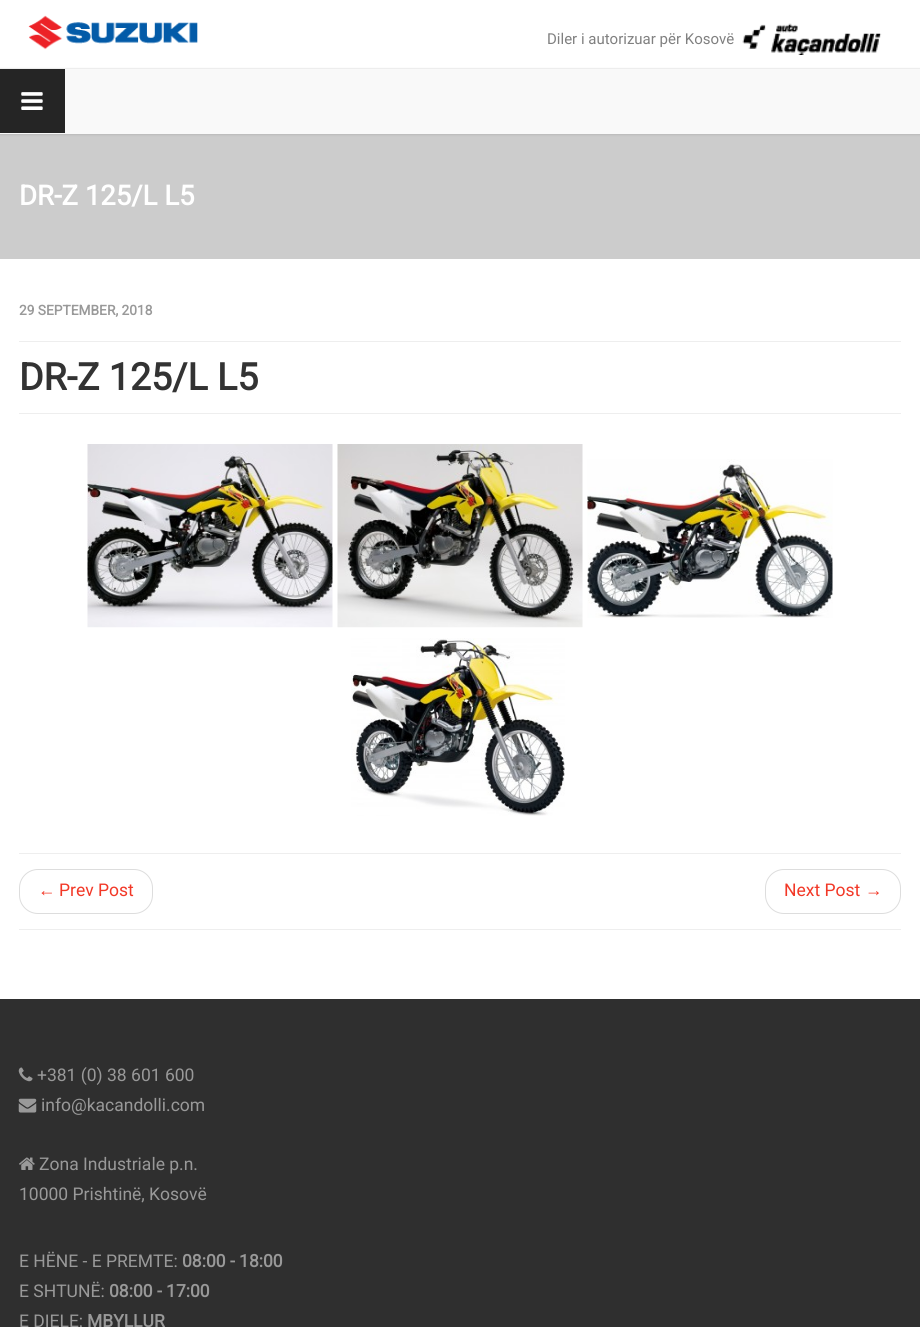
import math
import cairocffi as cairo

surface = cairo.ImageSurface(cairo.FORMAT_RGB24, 920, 1327)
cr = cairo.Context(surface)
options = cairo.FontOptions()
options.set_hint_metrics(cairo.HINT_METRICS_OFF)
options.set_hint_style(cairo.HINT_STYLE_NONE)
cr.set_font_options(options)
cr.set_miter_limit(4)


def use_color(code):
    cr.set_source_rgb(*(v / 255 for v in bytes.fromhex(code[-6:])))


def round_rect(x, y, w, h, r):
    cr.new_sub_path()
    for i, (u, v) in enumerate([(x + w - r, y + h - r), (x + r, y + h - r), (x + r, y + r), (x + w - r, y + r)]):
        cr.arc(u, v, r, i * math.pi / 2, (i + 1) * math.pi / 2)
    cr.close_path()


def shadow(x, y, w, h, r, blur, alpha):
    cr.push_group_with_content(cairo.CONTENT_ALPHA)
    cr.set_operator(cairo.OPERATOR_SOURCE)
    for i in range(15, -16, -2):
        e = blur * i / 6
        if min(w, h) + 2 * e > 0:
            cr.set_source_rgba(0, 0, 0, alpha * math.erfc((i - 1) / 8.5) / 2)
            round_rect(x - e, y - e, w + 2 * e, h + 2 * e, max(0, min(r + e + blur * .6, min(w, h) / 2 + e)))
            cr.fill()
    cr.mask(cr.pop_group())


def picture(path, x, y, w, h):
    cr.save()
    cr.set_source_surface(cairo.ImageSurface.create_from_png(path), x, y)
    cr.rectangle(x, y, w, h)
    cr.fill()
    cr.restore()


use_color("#ffffff")
cr.paint()
use_color("#cccccc")
cr.rectangle(0, 134, 920, 125)
cr.fill()
use_color("#000000")
shadow(0, 69, 920, 66, 0, 1, 0.1)
use_color("#ededed")
cr.rectangle(0, 68, 920, 1)
cr.fill()
picture("img1.png", 28, 15, 170, 35)
cr.select_font_face("Roboto")
cr.set_font_size(15)
use_color("#808080")
cr.move_to(547, 44)
cr.show_text("Diler i autorizuar për Kosovë")
picture("img2.png", 742, 23, 140, 32)
use_color("#f9f9f9")
cr.rectangle(0, 69, 920, 65)
cr.fill()
use_color("#252525")
cr.rectangle(0, 69, 65, 64)
cr.fill()
picture("img3.png", 21, 92, 22, 18)
cr.select_font_face("Roboto", cairo.FONT_SLANT_NORMAL, cairo.FONT_WEIGHT_BOLD)
cr.set_font_size(27.5)
use_color("#ffffff")
cr.move_to(19, 205)
cr.show_text("DR-Z 125/L L5")
use_color("#eeeeee")
cr.rectangle(19, 413, 882, 1)
cr.fill()
cr.set_font_size(13.75)
use_color("#999999")
cr.move_to(19, 315)
cr.show_text("29 SEPTEMBER, 2018")
use_color("#eeeeee")
cr.rectangle(19, 341, 882, 1)
cr.fill()
cr.set_font_size(37.5)
use_color("#333333")
cr.move_to(19, 390)
cr.show_text("DR-Z 125/L L5")
picture("img4.png", 87, 444, 246, 184)
picture("img5.png", 337, 444, 246, 184)
picture("img6.png", 587, 459, 246, 159)
picture("img7.png", 351, 638, 214, 178)
use_color("#eeeeee")
cr.rectangle(19, 853, 882, 1)
cr.fill()
cr.rectangle(19, 929, 882, 1)
cr.fill()
round_rect(19.5, 869.5, 133, 44, 18.5)
use_color("#dddddd")
cr.set_line_width(1)
cr.stroke()
cr.select_font_face("Liberation Serif")
cr.set_font_size(17.5)
use_color("#f23827")
cr.move_to(38, 896)
cr.show_text("←")
cr.select_font_face("Roboto")
cr.move_to(59, 896)
cr.show_text("Prev Post")
round_rect(765.5, 869.5, 135, 44, 18.5)
use_color("#dddddd")
cr.stroke()
use_color("#f23827")
cr.move_to(784, 896)
cr.show_text("Next Post")
cr.select_font_face("Liberation Serif")
cr.move_to(865, 896)
cr.show_text("→")
use_color("#2f2f2f")
cr.rectangle(0, 999, 920, 328)
cr.fill()
picture("img8.png", 18, 1067, 15, 15)
cr.select_font_face("Roboto")
use_color("#999999")
cr.move_to(37, 1081)
cr.show_text("+381 (0) 38 601 600")
picture("img9.png", 18, 1098, 19, 15)
cr.move_to(41, 1111)
cr.show_text("info@kacandolli.com")
picture("img10.png", 19, 1157, 16, 13)
cr.move_to(39, 1170)
cr.show_text("Zona Industriale p.n.")
cr.move_to(19, 1200)
cr.show_text("10000 Prishtinë, Kosovë")
cr.move_to(19, 1267)
cr.show_text("E HËNE - E PREMTE:")
cr.select_font_face("Roboto", cairo.FONT_SLANT_NORMAL, cairo.FONT_WEIGHT_BOLD)
cr.move_to(182, 1267)
cr.show_text("08:00 - 18:00")
cr.select_font_face("Roboto")
cr.move_to(19, 1297)
cr.show_text("E SHTUNË:")
cr.select_font_face("Roboto", cairo.FONT_SLANT_NORMAL, cairo.FONT_WEIGHT_BOLD)
cr.move_to(109, 1297)
cr.show_text("08:00 - 17:00")
cr.select_font_face("Roboto")
cr.move_to(19, 1327)
cr.show_text("E DIELE:")
cr.select_font_face("Roboto", cairo.FONT_SLANT_NORMAL, cairo.FONT_WEIGHT_BOLD)
cr.move_to(87, 1327)
cr.show_text("MBYLLUR")
surface.write_to_png("result.png")
